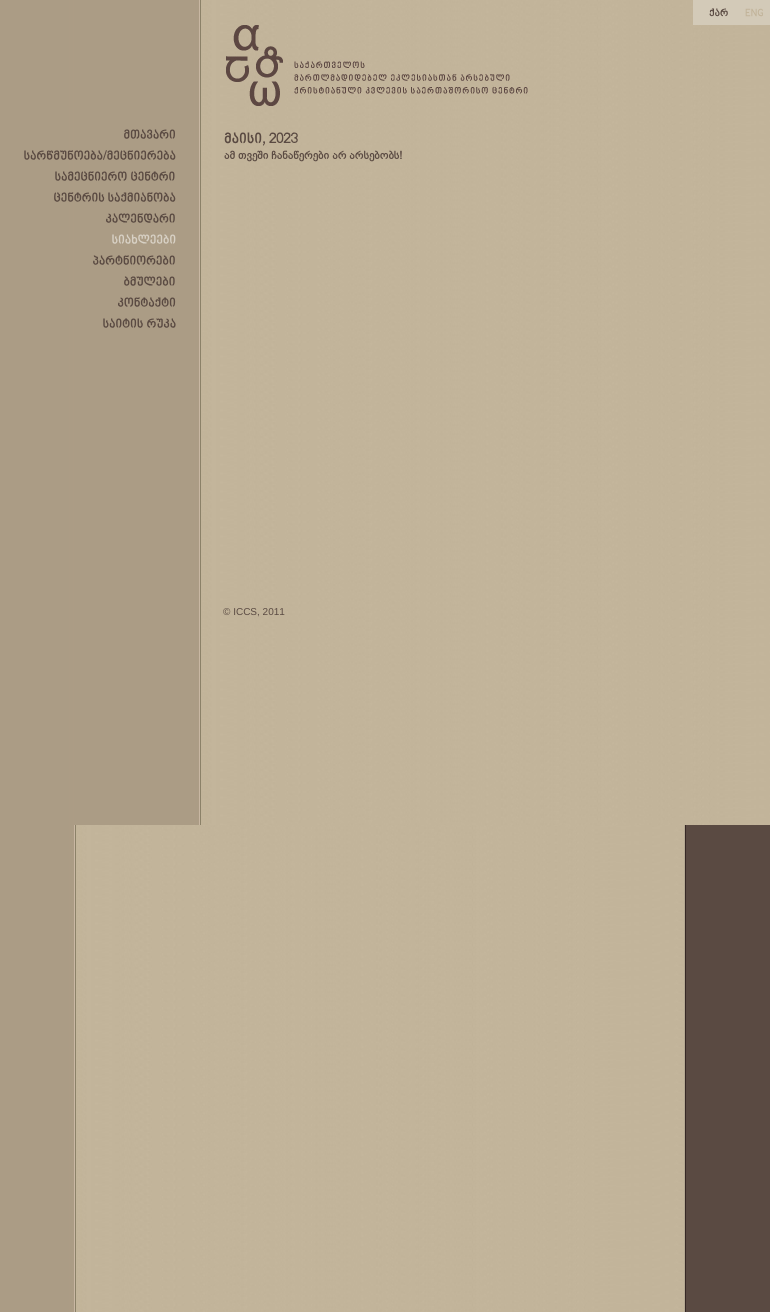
import math
import cairocffi as cairo

surface = cairo.ImageSurface(cairo.FORMAT_RGB24, 770, 1312)
cr = cairo.Context(surface)
options = cairo.FontOptions()
options.set_hint_metrics(cairo.HINT_METRICS_OFF)
options.set_hint_style(cairo.HINT_STYLE_NONE)
cr.set_font_options(options)
cr.set_miter_limit(4)


def use_color(code):
    cr.set_source_rgb(*(v / 255 for v in bytes.fromhex(code[-6:])))


def picture(path, x, y, w, h):
    cr.save()
    cr.set_source_surface(cairo.ImageSurface.create_from_png(path), x, y)
    cr.rectangle(x, y, w, h)
    cr.fill()
    cr.restore()


use_color("#ffffff")
cr.paint()
picture("img1.png", 0, 0, 770, 1312)
picture("img2.png", 74, 0, 696, 825)
picture("img3.png", 124, 129, 51, 10)
picture("img4.png", 24, 150, 152, 10)
picture("img5.png", 55, 171, 72, 10)
picture("img6.png", 131, 171, 44, 10)
picture("img7.png", 54, 192, 51, 10)
picture("img8.png", 108, 192, 68, 10)
picture("img9.png", 106, 213, 69, 10)
picture("img10.png", 112, 234, 64, 10)
picture("img11.png", 93, 255, 82, 10)
picture("img12.png", 124, 276, 51, 10)
picture("img13.png", 118, 297, 58, 10)
picture("img14.png", 103, 318, 40, 10)
picture("img15.png", 147, 318, 29, 10)
use_color("#d3cab8")
cr.rectangle(693, 0, 77, 25)
cr.fill()
picture("img16.png", 709, 8, 19, 9)
picture("img17.png", 745, 8, 18, 9)
picture("img18.png", 226, 25, 302, 81)
picture("img19.png", 224, 132, 41, 14)
picture("img20.png", 269, 132, 29, 11)
cr.select_font_face("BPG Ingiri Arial", cairo.FONT_SLANT_NORMAL, cairo.FONT_WEIGHT_BOLD)
cr.set_font_size(11)
use_color("#5a4a42")
cr.move_to(224, 159)
cr.show_text("ამ თვეში ჩანაწერები არ არსებობს!")
cr.select_font_face("Liberation Sans")
cr.set_font_size(10)
cr.move_to(223, 615)
cr.show_text("© ICCS, 2011")
surface.write_to_png("result.png")
